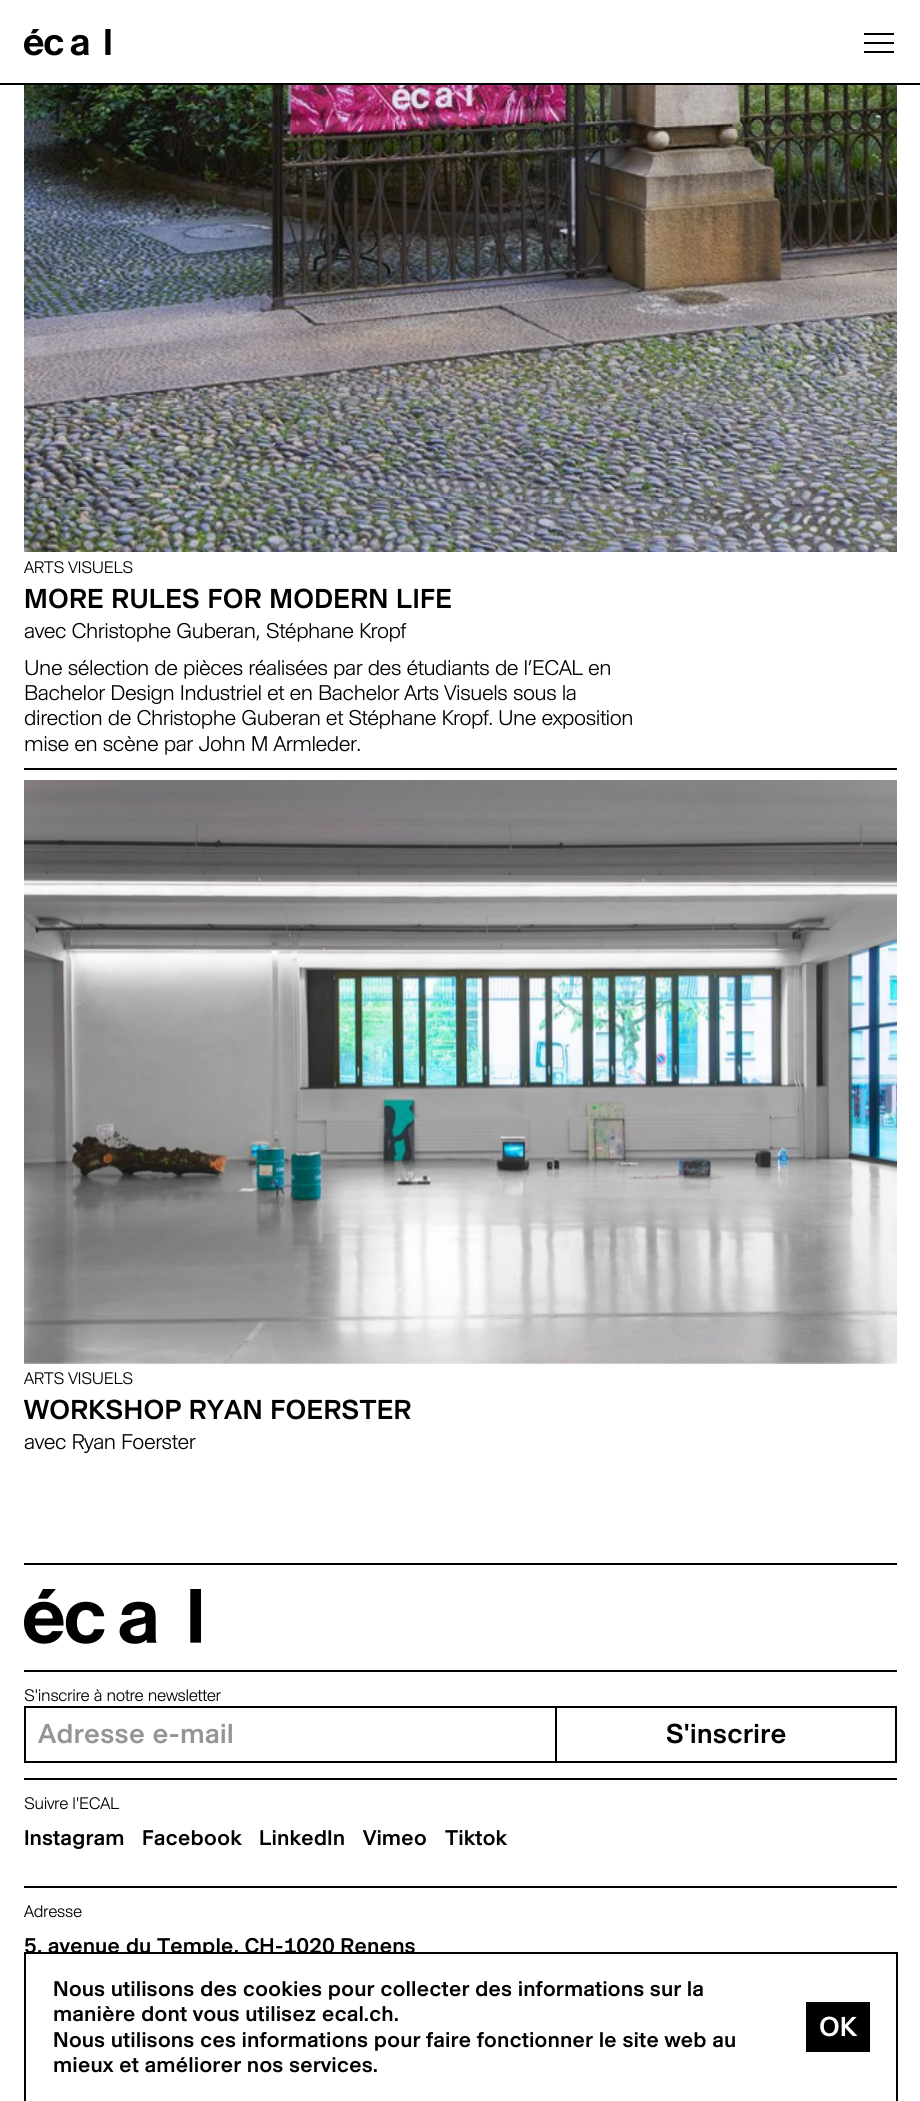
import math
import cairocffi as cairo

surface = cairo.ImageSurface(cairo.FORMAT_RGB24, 920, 2101)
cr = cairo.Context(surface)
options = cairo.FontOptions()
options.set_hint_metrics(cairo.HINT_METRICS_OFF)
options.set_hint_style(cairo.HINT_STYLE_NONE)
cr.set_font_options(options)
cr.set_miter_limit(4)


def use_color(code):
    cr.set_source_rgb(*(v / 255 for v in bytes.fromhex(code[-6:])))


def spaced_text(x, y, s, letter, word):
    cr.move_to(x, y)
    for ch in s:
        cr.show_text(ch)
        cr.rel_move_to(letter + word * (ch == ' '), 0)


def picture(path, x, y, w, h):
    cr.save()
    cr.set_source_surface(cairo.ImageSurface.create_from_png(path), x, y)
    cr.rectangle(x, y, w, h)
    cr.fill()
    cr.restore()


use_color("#ffffff")
cr.paint()
picture("img1.png", 24, 29, 87, 27)
use_color("#000000")
cr.rectangle(864, 51, 30, 2)
cr.fill()
cr.rectangle(864, 42, 30, 2)
cr.fill()
cr.rectangle(864, 33, 30, 2)
cr.fill()
cr.rectangle(0, 83, 920, 2)
cr.fill()
use_color("#ffffff")
cr.rectangle(23, 572, 1, 829)
cr.fill()
picture("img2.png", 24, 85, 873, 467)
cr.select_font_face("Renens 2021 Light")
cr.set_font_size(16.5)
use_color("#000000")
spaced_text(24, 573, "ARTS VISUELS", -0.3, 0)
cr.select_font_face("Renens 2021 Medium")
cr.set_font_size(27)
spaced_text(24, 608, "MORE RULES FOR MODERN LIFE", 0.25, 0)
cr.select_font_face("Renens 2021 Light")
cr.set_font_size(21)
spaced_text(24, 638, "avec Christophe Guberan, Stéphane Kropf", -0.42, 0)
spaced_text(24, 675, "Une sélection de pièces réalisées par des étudiants de l’ECAL en", -0.42, 0)
spaced_text(24, 700, "Bachelor Design Industriel et en Bachelor Arts Visuels sous la", -0.42, 0)
spaced_text(24, 725, "direction de Christophe Guberan et Stéphane Kropf. Une exposition", -0.42, 0)
spaced_text(24, 751, "mise en scène par John M Armleder.", -0.42, 0)
cr.rectangle(24, 768, 873, 2)
cr.fill()
picture("img3.png", 24, 780, 873, 584)
cr.set_font_size(16.5)
spaced_text(24, 1384, "ARTS VISUELS", -0.3, 0)
cr.select_font_face("Renens 2021 Medium")
cr.set_font_size(27)
spaced_text(24, 1419, "WORKSHOP RYAN FOERSTER", 0.25, 0)
cr.select_font_face("Renens 2021 Light")
cr.set_font_size(21)
spaced_text(24, 1449, "avec Ryan Foerster", -0.42, 0)
cr.rectangle(24, 1563, 873, 2)
cr.fill()
picture("img4.png", 24, 1589, 177, 55)
cr.rectangle(24, 1670, 873, 2)
cr.fill()
cr.set_font_size(16.5)
spaced_text(24, 1701, "S'inscrire à notre newsletter", -0.3, 0)
cr.rectangle(25, 1707, 531, 55)
cr.stroke()
cr.select_font_face("Renens 2021 Medium")
cr.set_font_size(27)
use_color("#959595")
cr.move_to(38, 1743)
cr.show_text("Adresse e-mail")
cr.rectangle(556, 1707, 340, 55)
use_color("#000000")
cr.stroke()
cr.move_to(666, 1743)
cr.show_text("S'inscrire")
cr.rectangle(24, 1778, 873, 2)
cr.fill()
cr.select_font_face("Renens 2021 Light")
cr.set_font_size(16.5)
spaced_text(24, 1809, "Suivre l'ECAL", -0.3, 0)
cr.select_font_face("Renens 2021 Medium")
cr.set_font_size(21)
cr.move_to(24, 1845)
cr.show_text("Instagram")
cr.move_to(142, 1845)
cr.show_text("Facebook")
cr.move_to(259, 1845)
cr.show_text("LinkedIn")
cr.move_to(363, 1845)
cr.show_text("Vimeo")
cr.move_to(445, 1845)
cr.show_text("Tiktok")
cr.rectangle(24, 1886, 873, 2)
cr.fill()
cr.select_font_face("Renens 2021 Light")
cr.set_font_size(16.5)
spaced_text(24, 1917, "Adresse", -0.3, 0)
cr.select_font_face("Renens 2021 Medium")
cr.set_font_size(21)
cr.move_to(24, 1953)
cr.show_text("5, avenue du Temple, CH-1020 Renens")
use_color("#ffffff")
cr.rectangle(37, 1954, 200, 3)
cr.fill()
use_color("#000000")
cr.rectangle(24, 1952, 873, 2)
cr.fill()
cr.rectangle(896, 1952, 2, 149)
cr.fill()
cr.rectangle(24, 1952, 2, 149)
cr.fill()
cr.move_to(53, 1996)
cr.show_text("Nous utilisons des cookies pour collecter des informations sur la")
cr.move_to(53, 2021)
cr.show_text("manière dont vous utilisez ecal.ch.")
cr.rectangle(806, 2002, 64, 50)
cr.fill()
cr.set_font_size(27)
use_color("#ffffff")
cr.move_to(819, 2036)
cr.show_text("OK")
cr.set_font_size(21)
use_color("#000000")
cr.move_to(53, 2047)
cr.show_text("Nous utilisons ces informations pour faire fonctionner le site web au")
cr.move_to(53, 2072)
cr.show_text("mieux et améliorer nos services.")
surface.write_to_png("result.png")
